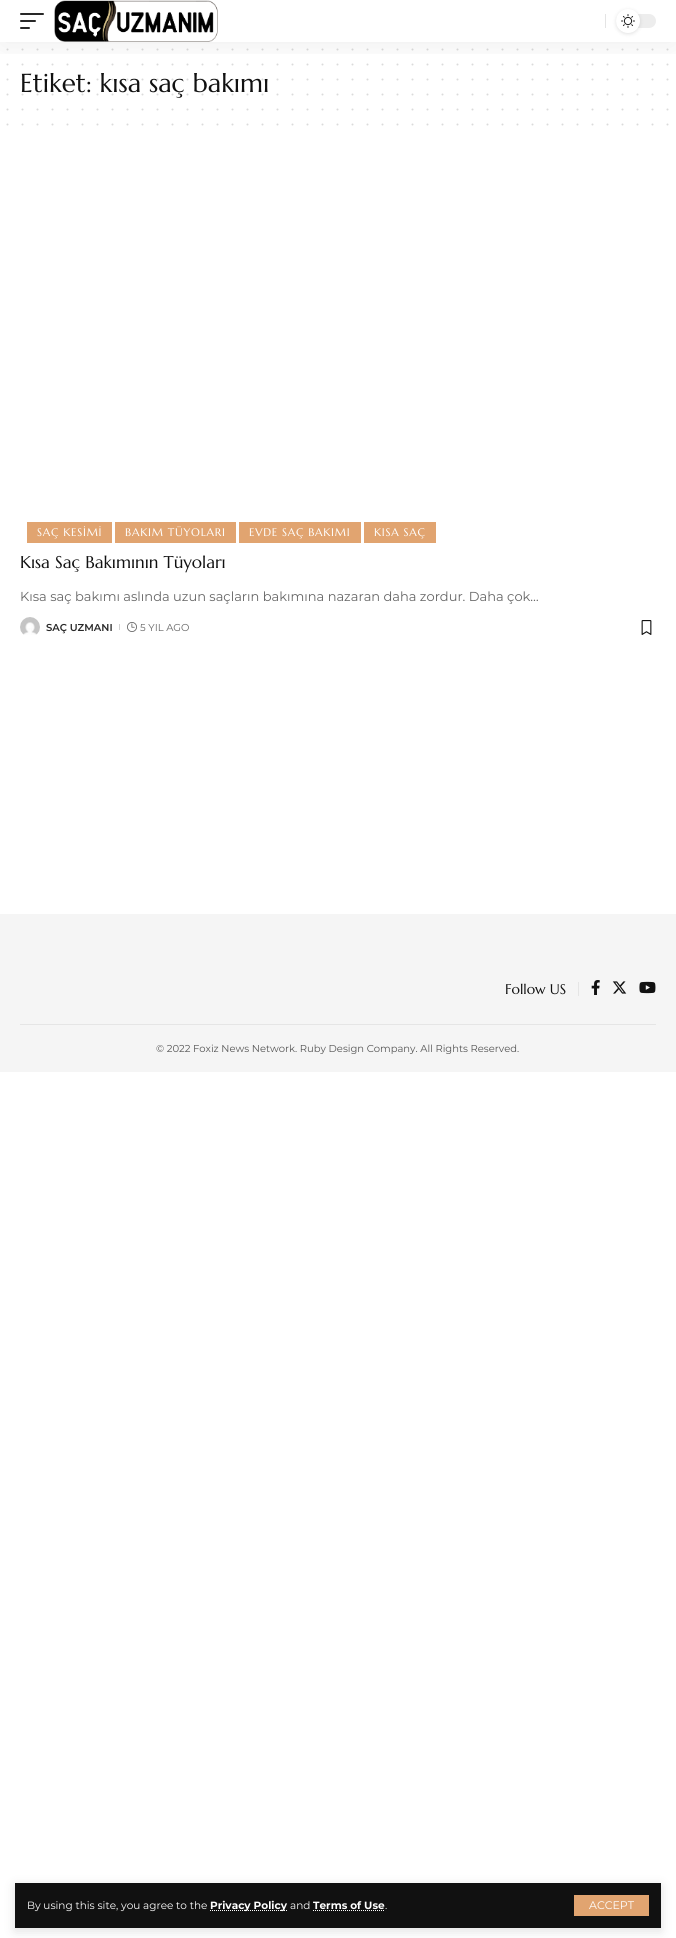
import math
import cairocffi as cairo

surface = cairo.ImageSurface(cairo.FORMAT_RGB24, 676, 1938)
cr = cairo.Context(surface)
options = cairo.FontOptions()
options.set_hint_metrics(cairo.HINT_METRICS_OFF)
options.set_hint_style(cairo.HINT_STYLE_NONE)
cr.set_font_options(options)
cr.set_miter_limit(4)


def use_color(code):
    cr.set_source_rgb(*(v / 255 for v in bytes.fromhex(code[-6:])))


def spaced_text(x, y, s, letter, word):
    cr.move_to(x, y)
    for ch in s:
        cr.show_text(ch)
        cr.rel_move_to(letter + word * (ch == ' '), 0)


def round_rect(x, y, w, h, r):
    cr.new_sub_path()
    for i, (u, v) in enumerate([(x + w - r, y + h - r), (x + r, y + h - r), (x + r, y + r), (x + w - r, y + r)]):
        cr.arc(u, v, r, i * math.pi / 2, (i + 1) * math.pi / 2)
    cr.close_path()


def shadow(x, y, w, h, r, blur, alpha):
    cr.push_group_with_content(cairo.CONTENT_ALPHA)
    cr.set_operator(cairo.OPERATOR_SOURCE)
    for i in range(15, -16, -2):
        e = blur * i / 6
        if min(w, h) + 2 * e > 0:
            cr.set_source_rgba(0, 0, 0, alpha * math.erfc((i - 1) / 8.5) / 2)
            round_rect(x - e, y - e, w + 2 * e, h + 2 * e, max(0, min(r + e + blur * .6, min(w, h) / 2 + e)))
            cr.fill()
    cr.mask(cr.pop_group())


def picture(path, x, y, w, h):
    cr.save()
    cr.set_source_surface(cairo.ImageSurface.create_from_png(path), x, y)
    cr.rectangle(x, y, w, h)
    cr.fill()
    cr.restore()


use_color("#ffffff")
cr.paint()
cr.new_path()
cr.move_to(7.5, 49.5)
cr.line_to(667.7, 49.5)
use_color("#dbdbdb")
cr.set_line_cap(cairo.LINE_CAP_ROUND)
cr.set_dash([0, 15])
cr.stroke()
cr.new_path()
cr.move_to(7.5, 64.5)
cr.line_to(667.7, 64.5)
cr.stroke()
cr.select_font_face("Marcellus")
cr.set_font_size(26)
use_color("#111111")
cr.move_to(20, 92)
cr.show_text("Etiket: kısa saç bakımı")
cr.new_path()
cr.move_to(7.5, 79.5)
cr.line_to(667.7, 79.5)
cr.set_source_rgba(0.067, 0.067, 0.067, 0.15)
cr.stroke()
cr.new_path()
cr.move_to(7.5, 94.5)
cr.line_to(667.7, 94.5)
use_color("#dbdbdb")
cr.stroke()
cr.new_path()
cr.move_to(7.5, 109.5)
cr.line_to(667.7, 109.5)
cr.stroke()
cr.new_path()
cr.move_to(7.5, 124.5)
cr.line_to(667.7, 124.5)
cr.stroke()
use_color("#e1a470")
cr.rectangle(27, 522, 85, 21)
cr.fill()
cr.set_font_size(11)
use_color("#ffffff")
spaced_text(37, 536, "SAÇ KESİMİ", 0.75, 0)
use_color("#e1a470")
cr.rectangle(115, 522, 121, 21)
cr.fill()
use_color("#ffffff")
spaced_text(125, 536, "BAKIM TÜYOLARI", 0.75, 0)
use_color("#e1a470")
cr.rectangle(239, 522, 122, 21)
cr.fill()
use_color("#ffffff")
spaced_text(249, 536, "EVDE SAÇ BAKIMI", 0.75, 0)
use_color("#e1a470")
cr.rectangle(364, 522, 72, 21)
cr.fill()
use_color("#ffffff")
spaced_text(374, 536, "KISA SAÇ", 0.75, 0)
cr.set_font_size(17)
use_color("#111111")
cr.move_to(20, 568)
cr.show_text("Kısa Saç Bakımının Tüyoları")
cr.select_font_face("Montserrat")
cr.set_font_size(13)
use_color("#666666")
cr.move_to(20, 601)
cr.show_text("Kısa saç bakımı aslında uzun saçların bakımına nazaran daha zordur. Daha çok…")
picture("img1.png", 20, 617, 20, 18)
cr.select_font_face("Montserrat SemiBold")
cr.set_font_size(10)
use_color("#282828")
cr.move_to(46, 631)
cr.show_text("SAÇ UZMANI")
use_color("#d1d1d1")
cr.rectangle(119, 624, 1, 6)
cr.fill()
picture("img2.png", 127, 622, 10, 10)
cr.select_font_face("Montserrat")
use_color("#666666")
cr.move_to(140, 631)
cr.show_text("5 YIL AGO")
picture("img3.png", 641, 620, 11, 15)
use_color("#f5f5f5")
cr.rectangle(0, 914, 676, 158)
cr.fill()
use_color("#e5e5e5")
cr.rectangle(578, 982, 1, 14)
cr.fill()
cr.select_font_face("Marcellus")
cr.set_font_size(14)
use_color("#111111")
cr.move_to(505, 994)
cr.show_text("Follow US")
picture("img4.png", 591, 980, 9, 15)
picture("img5.png", 612, 981, 15, 13)
picture("img6.png", 639, 981, 17, 13)
use_color("#e5e5e5")
cr.rectangle(20, 1024, 636, 1)
cr.fill()
cr.select_font_face("Montserrat")
cr.set_font_size(10)
use_color("#555555")
cr.move_to(156, 1052)
cr.show_text("© 2022 Foxiz News Network. Ruby Design Company. All Rights Reserved.")
cr.save()
cr.rectangle(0, 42, 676, 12)
cr.clip()
use_color("#000000")
shadow(0, 4, 676, 42, 0, 15, 0.07)
cr.restore()
use_color("#282828")
round_rect(20, 13, 24, 2, 1)
cr.fill()
round_rect(20, 20, 16, 2, 1)
cr.fill()
round_rect(20, 27, 10, 2, 1)
cr.fill()
picture("img7.png", 54, 0, 164, 42)
use_color("#e4e4e4")
cr.rectangle(605, 14, 1, 14)
cr.fill()
use_color("#ededed")
round_rect(616, 14, 40, 14, 7)
cr.fill()
use_color("#000000")
shadow(616, 10, 24, 24, 12, 2, 0.12)
use_color("#ffffff")
cr.arc(628, 21, 12, 0, 2 * math.pi)
cr.fill()
picture("img8.png", 621, 14, 14, 14)
use_color("#000000")
shadow(15, 1886, 646, 45, 0, 6, 0.12)
use_color("#111111")
cr.rectangle(15, 1883, 646, 45)
cr.fill()
cr.set_font_size(10.5)
use_color("#ffffff")
cr.move_to(27, 1909)
cr.show_text("By using this site, you agree to the")
cr.new_path()
cr.move_to(210, 1910.5)
cr.line_to(287, 1910.5)
cr.set_line_width(1)
cr.set_line_cap(cairo.LINE_CAP_BUTT)
cr.set_dash([1, 1])
cr.stroke()
cr.select_font_face("Montserrat", cairo.FONT_SLANT_NORMAL, cairo.FONT_WEIGHT_BOLD)
cr.move_to(210, 1909)
cr.show_text("Privacy Policy")
cr.select_font_face("Montserrat")
cr.move_to(290, 1909)
cr.show_text("and")
cr.select_font_face("Montserrat", cairo.FONT_SLANT_NORMAL, cairo.FONT_WEIGHT_BOLD)
cr.move_to(313, 1909)
cr.show_text("Terms of Use")
cr.new_path()
cr.move_to(313, 1910.5)
cr.line_to(384.5, 1910.5)
cr.stroke()
cr.select_font_face("Montserrat")
cr.move_to(385, 1909)
cr.show_text(".")
use_color("#e1a470")
cr.rectangle(574, 1895, 75, 21)
cr.fill()
cr.set_font_size(11)
use_color("#ffffff")
cr.move_to(589, 1909)
cr.show_text("ACCEPT")
surface.write_to_png("result.png")
